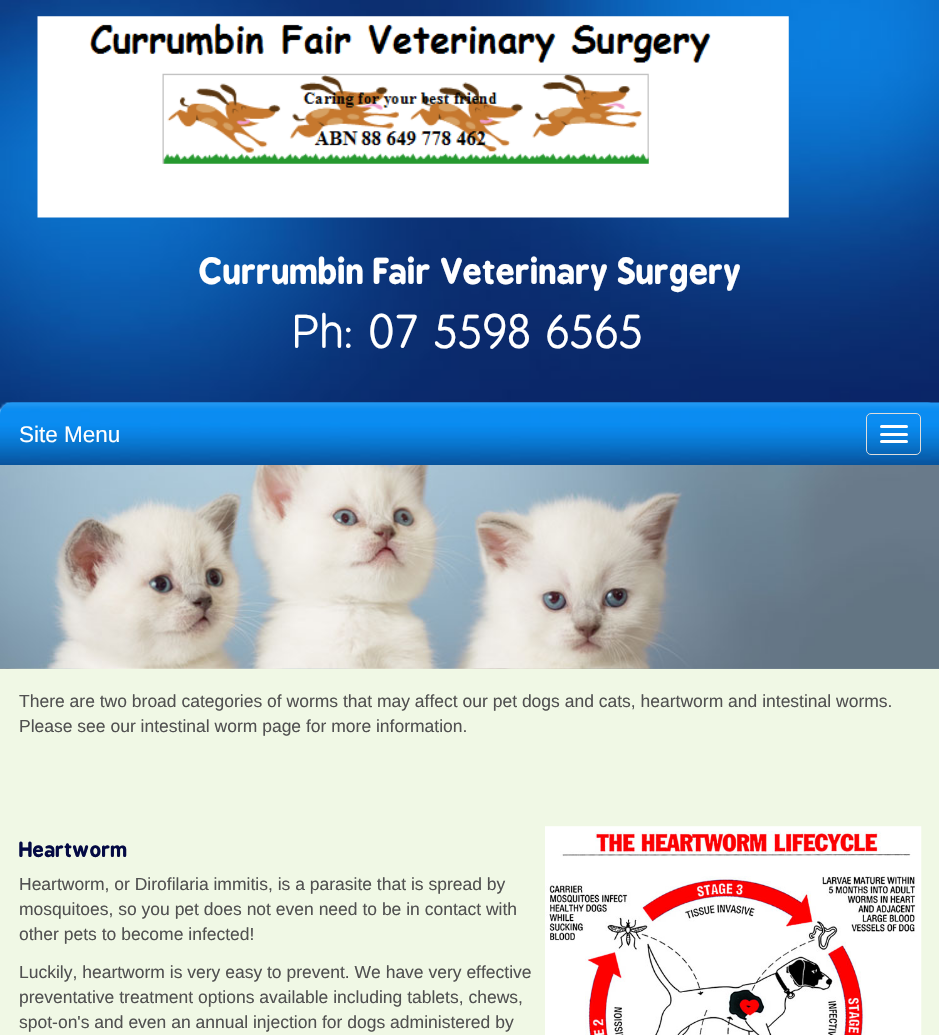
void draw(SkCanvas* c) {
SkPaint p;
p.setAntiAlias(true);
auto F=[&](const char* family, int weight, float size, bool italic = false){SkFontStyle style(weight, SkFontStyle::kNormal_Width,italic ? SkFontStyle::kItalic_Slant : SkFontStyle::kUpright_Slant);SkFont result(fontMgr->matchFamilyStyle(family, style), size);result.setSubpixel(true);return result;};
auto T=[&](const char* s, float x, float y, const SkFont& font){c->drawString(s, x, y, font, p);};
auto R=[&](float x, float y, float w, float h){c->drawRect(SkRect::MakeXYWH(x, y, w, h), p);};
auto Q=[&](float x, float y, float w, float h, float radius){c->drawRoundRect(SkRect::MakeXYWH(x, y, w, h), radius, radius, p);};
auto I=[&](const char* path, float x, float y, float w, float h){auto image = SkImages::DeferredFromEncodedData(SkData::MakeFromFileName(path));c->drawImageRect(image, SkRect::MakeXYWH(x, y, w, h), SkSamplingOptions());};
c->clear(0xffffffff);
I("1.png",0,0,939,403);
I("2.png",37,16,752,202);
auto f1 = F("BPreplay",700,33.75);
p.setColor(0xffffffff);
T("Currumbin Fair Veterinary Surgery",199,284,f1);
auto f2 = F("BPreplay",400,45);
T("Ph: 07 5598 6565",295,348,f2);
I("3.png",0,402,939,63);
I("4.png",0,402,931,63);
auto f3 = F("Liberation Sans",400,22.5);
T("Site Menu",19,442,f3);
p.setStroke(true);
p.setStrokeWidth(1);
p.setColor(0xffdddddd);
c->drawRoundRect(SkRect::MakeXYWH(866.5,413.5,54,41),4.5,4.5,p);
p.setStroke(false);
p.setColor(0xffffffff);
Q(880,425,28,3,1.5);
Q(880,433,28,3,1.5);
Q(880,440,28,3,1.5);
p.setColor(0xfff0f8e5);
R(0,668,939,367);
I("5.png",0,668,939,1);
I("6.png",0,465,939,204);
auto f4 = F("Liberation Sans",400,17.5);
p.setColor(0xff515151);
T("There are two broad categories of worms that may affect our pet dogs and cats, heartworm and intestinal worms.",19,707,f4);
T("Please see our intestinal worm page for more information.",19,732,f4);
auto f5 = F("BPreplay",700,20);
p.setColor(0xff040a44);
T("Heartworm",19,857,f5);
I("7.png",545,826,377,209);
p.setColor(0xff515151);
T("Heartworm, or Dirofilaria immitis, is a parasite that is spread by",19,890,f4);
T("mosquitoes, so you pet does not even need to be in contact with",19,915,f4);
T("other pets to become infected!",19,940,f4);
T("Luckily, heartworm is very easy to prevent. We have very effective",19,978,f4);
T("preventative treatment options available including tablets, chews,",19,1003,f4);
T("spot-on's and even an annual injection for dogs administered by",19,1028,f4);
}
